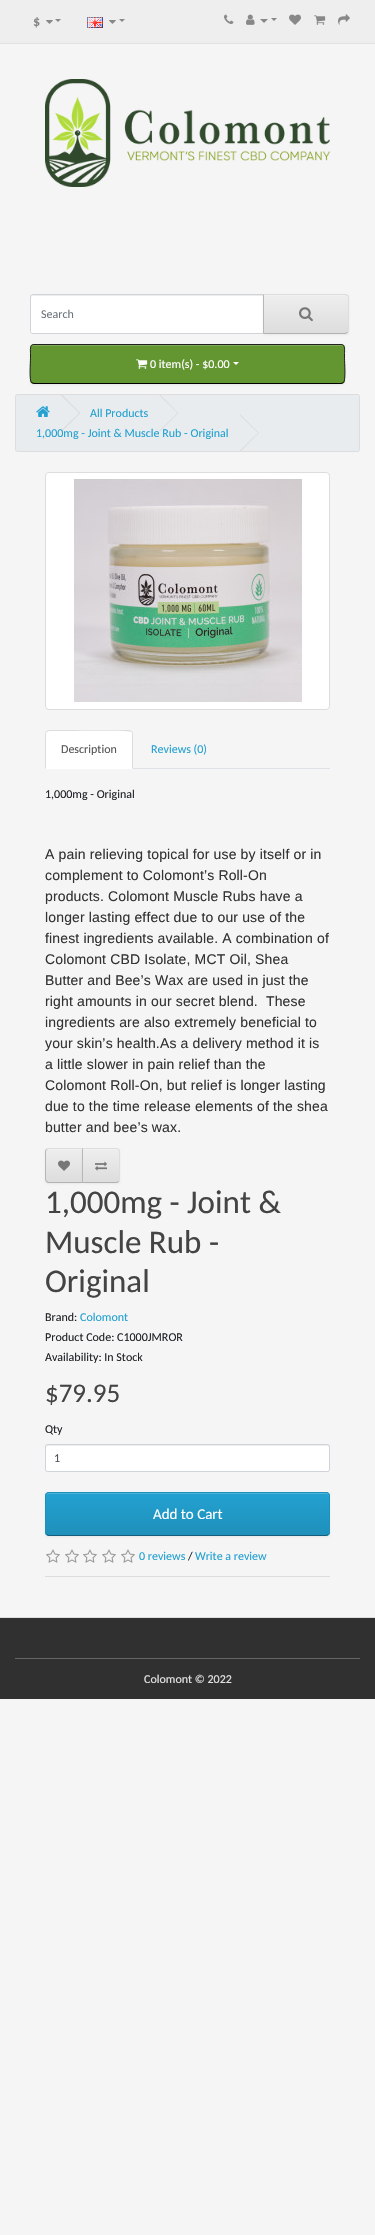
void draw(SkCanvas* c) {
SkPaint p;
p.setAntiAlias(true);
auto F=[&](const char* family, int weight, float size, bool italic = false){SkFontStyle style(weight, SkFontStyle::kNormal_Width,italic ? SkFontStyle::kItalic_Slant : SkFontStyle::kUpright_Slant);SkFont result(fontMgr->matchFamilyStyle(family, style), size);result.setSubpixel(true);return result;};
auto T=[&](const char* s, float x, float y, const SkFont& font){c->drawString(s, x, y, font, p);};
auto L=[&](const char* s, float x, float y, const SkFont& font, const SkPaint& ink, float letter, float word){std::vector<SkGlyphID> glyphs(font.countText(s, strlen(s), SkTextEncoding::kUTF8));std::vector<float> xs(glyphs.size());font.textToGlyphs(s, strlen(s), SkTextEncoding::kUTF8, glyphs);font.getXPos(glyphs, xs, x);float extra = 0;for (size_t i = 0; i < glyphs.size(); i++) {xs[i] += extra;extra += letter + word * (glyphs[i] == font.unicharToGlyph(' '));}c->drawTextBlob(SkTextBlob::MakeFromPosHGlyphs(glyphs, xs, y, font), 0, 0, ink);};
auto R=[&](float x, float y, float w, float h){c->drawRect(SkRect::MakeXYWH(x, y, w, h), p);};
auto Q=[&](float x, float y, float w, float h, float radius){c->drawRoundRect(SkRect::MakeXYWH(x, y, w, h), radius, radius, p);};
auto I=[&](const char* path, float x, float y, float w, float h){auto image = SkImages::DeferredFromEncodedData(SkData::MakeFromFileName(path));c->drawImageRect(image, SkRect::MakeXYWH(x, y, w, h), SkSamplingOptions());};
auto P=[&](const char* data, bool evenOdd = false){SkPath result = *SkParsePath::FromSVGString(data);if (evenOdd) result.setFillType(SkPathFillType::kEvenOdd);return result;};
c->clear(0xfff5f5f5);
p.setColor(0xffeeeeee);
R(0,0,375,43);
p.setColor(0xffe2e2e2);
R(0,43,375,1);
auto f1 = F("Carlito",700,14);
p.setColor(0xff888888);
T("$",33,26,f1);
I("1.png",46,20,7,4);
c->drawPath(P("M55 19h6l-3 3z"),p);
I("2.png",87,17,16,11);
I("1.png",109,20,7,4);
c->drawPath(P("M119 19h6l-3 3z"),p);
I("3.png",224,14,10,10);
I("4.png",246,14,9,11);
c->drawPath(P("M260 19h8l-4 4zm11-1h6l-3 3z"),p);
I("5.png",289,14,12,11);
I("6.png",314,15,12,10);
I("7.png",338,14,12,11);
I("8.png",45,79,285,108);
p.setColor(0xffffffff);
c->drawPath(P("M32.5 295h230.5v38h-230.5c-1 0-1.5-.5-1.5-1.5v-35c0-1 .5-1.5 1.5-1.5z"),p);
p.setColor(0x12000000);
c->drawPath(P("M32 296h231v-1h-231c-1 0-1 2-1 3z"),p);
p.setStroke(true);
p.setStrokeWidth(1);
p.setColor(0xffced4da);
c->drawPath(P("M32.5 294.5h231v39h-231c-1 0-2-1-2-2v-35c0-1 1-2 2-2z"),p);
auto f2 = F("Carlito",400,12);
p.setStroke(false);
p.setColor(0xff6c757d);
T("Search",41,318,f2);
p.setColor(0x0d000000);
p.setMaskFilter(SkMaskFilter::MakeBlur(kNormal_SkBlurStyle, 1));
c->drawRoundRect(SkRect::MakeXYWH(263,295,86,40),4,4,p);
p.setMaskFilter(nullptr);
p.setColor(0xffe7e7e7);
c->drawPath(P("M263 294h82c2 0 4 2 4 4v32c0 2-2 4-4 4h-82z"),p);
c->save();
c->clipPath(P("M263 294h82c2 0 4 2 4 4v32c0 2-2 4-4 4h-82z"),true);
{
const SkColor colors[] = {0xffeeeeee,0xffdddddd};
const float stops[] = {0,1};
const SkPoint ends[] = {{306,295}, {306,333}};
p.setShader(SkGradientShader::MakeLinear(ends, colors, stops, 2, SkTileMode::kClamp));
p.setAlpha(255);
}
R(264,295,85,38);
c->restore();
p.setShader(nullptr);
p.setColor(0xfff1f1f1);
c->drawPath(P("M264 296h81c2 0 3 1 3 3v-1c0-2-1-3-3-3h-81z"),p);
p.setColor(0xffdddddd);
c->drawPath(P("M263 294l1 1h81l2 1l1-1l-3-1z"),p);
c->drawPath(P("M349 330v-32c0-1-.5-2-1-3l-1 1c1 0 1 1 1 2v32c0 1 0 2-1 2l1 1c.5-1 1-2 1-3z"),p);
p.setColor(0xffb3b3b3);
c->drawPath(P("M345 334l3-1l-1-1l-2 1h-81l-1 1z"),p);
p.setColor(0xffb7b7b7);
c->drawPath(P("M263 294v40l1-1v-38z"),p);
I("9.png",299,307,14,15);
p.setColor(0x0d000000);
p.setMaskFilter(SkMaskFilter::MakeBlur(kNormal_SkBlurStyle, 1));
c->drawRoundRect(SkRect::MakeXYWH(30,345,315,40),4,4,p);
p.setMaskFilter(nullptr);
p.setColor(0xff639531);
Q(30,344,315,40,4);
p.setColor(0xff82aa5a);
c->drawPath(P("M34 346h307c2 0 3 1 3 3l-1-3l-1-1h-308c-2 0-3 2-3 4c0-2 1-3 3-3z"),p);
p.setStroke(true);
p.setColor(0xff000000);
c->drawPath(P("M343.5 382.5l-2.5 1h-307l-2.5-1"),p);
p.setColor(0xff222222);
c->drawPath(P("M31.5 382.5c-2.5-2.5-1-20-1-24v-5c0-3-1-9 3.5-9h307c4.5 0 3.5 6 3.5 9v5c0 4 1.5 21.5-1 24"),p);
I("10.png",136,359,12,10);
p.setStroke(false);
p.setColor(0xffffffff);
T("0 item(s) - $0.00",150,368,f2);
c->drawPath(P("M233 362h6l-3 3z"),p);
p.setColor(0xffe9ecef);
c->drawRoundRect(SkRect::MakeXYWH(15.5,394.5,344,57),2,2,p);
p.setStroke(true);
p.setColor(0xffdddddd);
c->drawRoundRect(SkRect::MakeXYWH(15.5,394.5,344,57),2,2,p);
I("11.png",36,406,14,11);
p.setStroke(false);
c->drawPath(P("M61 395.5l1-1l18.5 18.5l-1 .5z"),p);
c->drawPath(P("M61 430.5l18.5-18l1 .5l-18.5 18.5z"),p);
p.setColor(0xff23a1d1);
T("All Products",90,417,f2);
p.setColor(0xffdddddd);
c->drawPath(P("M159.5 395.5l.5-1l18.5 18.5l-.5 .5z"),p);
c->drawPath(P("M159.5 430.5l18.5-18l.5 .5l-18.5 18.5z"),p);
p.setColor(0xff23a1d1);
T("1,000mg - Joint & Muscle Rub - Original",36,437,f2);
p.setColor(0xffdddddd);
c->drawPath(P("M240 415.5l.5-1l18.5 18.5l-.5 .5z"),p);
c->drawPath(P("M240 450.5l18.5-18l.5 .5l-18.5 18.5z"),p);
p.setColor(0xffffffff);
c->drawRoundRect(SkRect::MakeXYWH(45.5,472.5,284,237),3.5,3.5,p);
p.setStroke(true);
p.setColor(0xffdddddd);
c->drawRoundRect(SkRect::MakeXYWH(45.5,472.5,284,237),3.5,3.5,p);
I("12.png",74,479,228,223);
p.setStroke(false);
p.setColor(0xffdee2e6);
R(133,768,197,1);
p.setColor(0xffffffff);
c->drawPath(P("M49 730h80c2 0 4 2 4 4v35h-88v-35c0-2 2-4 4-4z"),p);
p.setColor(0xffdddddd);
c->drawPath(P("M49 730l-3 1l1 1l2-1h13c8 0 67-1 69 1l1-1l-3-1z"),p);
c->drawPath(P("M133 769v-35c0-1-.5-2-1-3l-1 1c1 0 1 1 1 2v34z"),p);
c->drawPath(P("M45 769l1-1v-34c0-1 0-2 1-2l-1-1c-.5 1-1 2-1 3z"),p);
p.setColor(0xff555555);
T("Description",61,753,f2);
p.setColor(0xff23a1d1);
T("Reviews (0)",151,753,f2);
p.setColor(0xff212529);
T("1,000mg - Original",45,798,f2);
auto f3 = F("Liberation Sans",400,14);
p.setColor(0xff333333);
L("A pain relieving topical for use by itself or in",45,859,f3,p,.15,0);
L("complement to Colomont’s Roll-On",45,880,f3,p,.15,0);
L("products. Colomont Muscle Rubs have a",45,901,f3,p,.15,0);
L("longer lasting effect due to our use of the",45,922,f3,p,.15,0);
L("finest ingredients available. A combination of",45,943,f3,p,.15,0);
L("Colomont CBD Isolate, MCT Oil, Shea",45,964,f3,p,.15,0);
L("Butter and Bee’s Wax are used in just the",45,985,f3,p,.15,0);
L("right amounts in our secret blend.  These",45,1006,f3,p,.15,0);
L("ingredients are also extremely beneficial to",45,1027,f3,p,.15,0);
L("your skin’s health.As a delivery method it is",45,1048,f3,p,.15,0);
L("a little slower in pain relief than the",45,1069,f3,p,.15,0);
L("Colomont Roll-On, but relief is longer lasting",45,1090,f3,p,.15,0);
L("due to the time release elements of the shea",45,1111,f3,p,.15,0);
L("butter and bee’s wax.",45,1132,f3,p,.15,0);
p.setColor(0x0d000000);
p.setMaskFilter(SkMaskFilter::MakeBlur(kNormal_SkBlurStyle, 1));
c->drawRoundRect(SkRect::MakeXYWH(45,1149,38,35),4,4,p);
p.setMaskFilter(nullptr);
c->save();
c->clipPath(P("M49 1148h34v35h-34c-2 0-4-2-4-4v-27c0-2 2-4 4-4z"),true);
{
const SkColor colors[] = {0xffeeeeee,0xffdddddd};
const float stops[] = {0,1};
const SkPoint ends[] = {{64,1149}, {64,1182}};
p.setShader(SkGradientShader::MakeLinear(ends, colors, stops, 2, SkTileMode::kClamp));
p.setAlpha(255);
}
R(45,1149,37,33);
c->restore();
p.setShader(nullptr);
p.setColor(0xfff1f1f1);
c->drawPath(P("M49 1150h33v-1h-33c-1.5 0-3 1.5-3 3v1c0-2 1-3 3-3z"),p);
p.setColor(0xffdddddd);
c->drawPath(P("M49 1148c-1 0-2 .5-3 1l1 1c.5-.5 1-1 2-1h33l1-1z"),p);
p.setColor(0xffb3b3b3);
c->drawPath(P("M83 1183l-1-1h-33c-1 0-1.5-.5-2-1l-1 1c1 .5 2 1 3 1z"),p);
p.setColor(0xffb7b7b7);
c->drawPath(P("M45 1152v27c0 1 .5 2 1 3l1-1c-.5-.5-1-1-1-2v-27c0-1 .5-1.5 1-2l-1-1c-.5 1-1 2-1 3z"),p);
I("13.png",58,1160,12,11);
p.setColor(0x0d000000);
p.setMaskFilter(SkMaskFilter::MakeBlur(kNormal_SkBlurStyle, 1));
c->drawRoundRect(SkRect::MakeXYWH(82,1149,38,35),4,4,p);
p.setMaskFilter(nullptr);
c->save();
c->clipPath(P("M82 1148h34c2 0 4 2 4 4v27c0 2-2 4-4 4h-34z"),true);
{
const SkColor colors[] = {0xffeeeeee,0xffdddddd};
const float stops[] = {0,1};
const SkPoint ends[] = {{101,1149}, {101,1182}};
p.setShader(SkGradientShader::MakeLinear(ends, colors, stops, 2, SkTileMode::kClamp));
p.setAlpha(255);
}
R(83,1149,37,33);
c->restore();
p.setShader(nullptr);
p.setColor(0xfff1f1f1);
c->drawPath(P("M83 1150h33c2 0 3 1 3 3v-1c0-1.5-1.5-3-3-3h-33z"),p);
p.setColor(0xffdddddd);
c->drawPath(P("M82 1148l1 1h33c1 0 1.5 .5 2 1l1-1c-1-.5-2-1-3-1z"),p);
c->drawPath(P("M120 1179v-27c0-1-.5-2-1-3l-1 1c.5 .5 1 1 1 2v27c0 1-.5 1.5-1 2l1 1c.5-1 1-2 1-3z"),p);
p.setColor(0xffb3b3b3);
c->drawPath(P("M116 1183c1 0 2-.5 3-1l-1-1c-.5 .5-1 1-2 1h-33l-1 1z"),p);
p.setColor(0xffb7b7b7);
c->drawPath(P("M82 1148v35l1-1v-33z"),p);
I("14.png",95,1161,12,10);
auto f4 = F("Carlito",400,33);
p.setColor(0xff444444);
T("1,000mg - Joint &",45,1213,f4);
T("Muscle Rub -",45,1253,f4);
T("Original",45,1292,f4);
p.setColor(0xff212529);
T("Brand:",45,1321,f2);
p.setColor(0xff23a1d1);
T("Colomont",80,1321,f2);
p.setColor(0xff212529);
T("Product Code: C1000JMROR",45,1341,f2);
T("Availability: In Stock",45,1361,f2);
auto f5 = F("Carlito",400,27);
p.setColor(0xff444444);
T("$79.95",45,1402,f5);
p.setColor(0xff212529);
T("Qty",45,1433,f2);
p.setColor(0xffffffff);
Q(46,1445,283,26,1.5);
p.setColor(0x12000000);
c->drawPath(P("M48 1446h280l1 2c0-1 0-3-1-3h-280h-2v3c0-1 1-2 2-2z"),p);
p.setStroke(true);
p.setColor(0xffced4da);
c->drawRoundRect(SkRect::MakeXYWH(45.5,1444.5,284,27),2,2,p);
p.setStroke(false);
p.setColor(0xff495057);
T("1",54,1462,f2);
p.setColor(0x0d000000);
p.setMaskFilter(SkMaskFilter::MakeBlur(kNormal_SkBlurStyle, 1));
c->drawRoundRect(SkRect::MakeXYWH(45,1493,285,44),4,4,p);
p.setMaskFilter(nullptr);
p.setColor(0xff229ac8);
Q(45,1492,285,44,4);
c->save();
c->clipPath(P("M49 1492h277c2 0 4 2 4 4v36c0 2-2 4-4 4h-277c-2 0-4-2-4-4v-36c0-2 2-4 4-4z"),true);
{
const SkColor colors[] = {0xff23a1d1,0xff1f90bb};
const float stops[] = {0,1};
const SkPoint ends[] = {{188,1493}, {188,1535}};
p.setShader(SkGradientShader::MakeLinear(ends, colors, stops, 2, SkTileMode::kClamp));
p.setAlpha(255);
}
R(45,1493,285,42);
c->restore();
p.setShader(nullptr);
p.setColor(0xff4fb4da);
c->drawPath(P("M49 1494h277c2 0 3 1 3 3v-1c0-2-1-3-3-3h-277c-2 0-3 1-3 3v1c0-2 1-3 3-3z"),p);
p.setStroke(true);
p.setColor(0xff145e7a);
c->drawPath(P("M328.5 1534.5l-2.5 1h-277l-2.5-1"),p);
p.setColor(0xff1f90bb);
c->drawPath(P("M46.5 1534.5c-.5-.5-1-1.5-1-2.5v-36c0-1 .5-2 1-2.5c.5-.5 1.5-1 2.5-1h277c1 0 2 .5 2.5 1c.5 .5 1 1.5 1 2.5v36c0 1-.5 2-1 2.5"),p);
auto f6 = F("Carlito",400,15);
p.setStroke(false);
p.setColor(0xffffffff);
T("Add to Cart",153,1519,f6);
I("15.png",46,1549,14,14);
I("15.png",65,1549,14,14);
I("15.png",83,1549,14,14);
I("15.png",102,1549,14,14);
I("15.png",121,1549,14,14);
p.setColor(0xff23a1d1);
T("0 reviews",139,1560,f2);
p.setColor(0xff212529);
T("/",188,1560,f2);
p.setColor(0xff23a1d1);
T("Write a review",195,1560,f2);
p.setColor(0xffdddddd);
R(45,1576,285,1);
p.setColor(0xff303030);
R(0,1618,375,81);
p.setColor(0xffdddddd);
R(0,1617,375,1);
p.setColor(0xff666666);
R(15,1658,345,1);
p.setColor(0xffe2e2e2);
T("Colomont © 2022",144,1683,f2);
}
